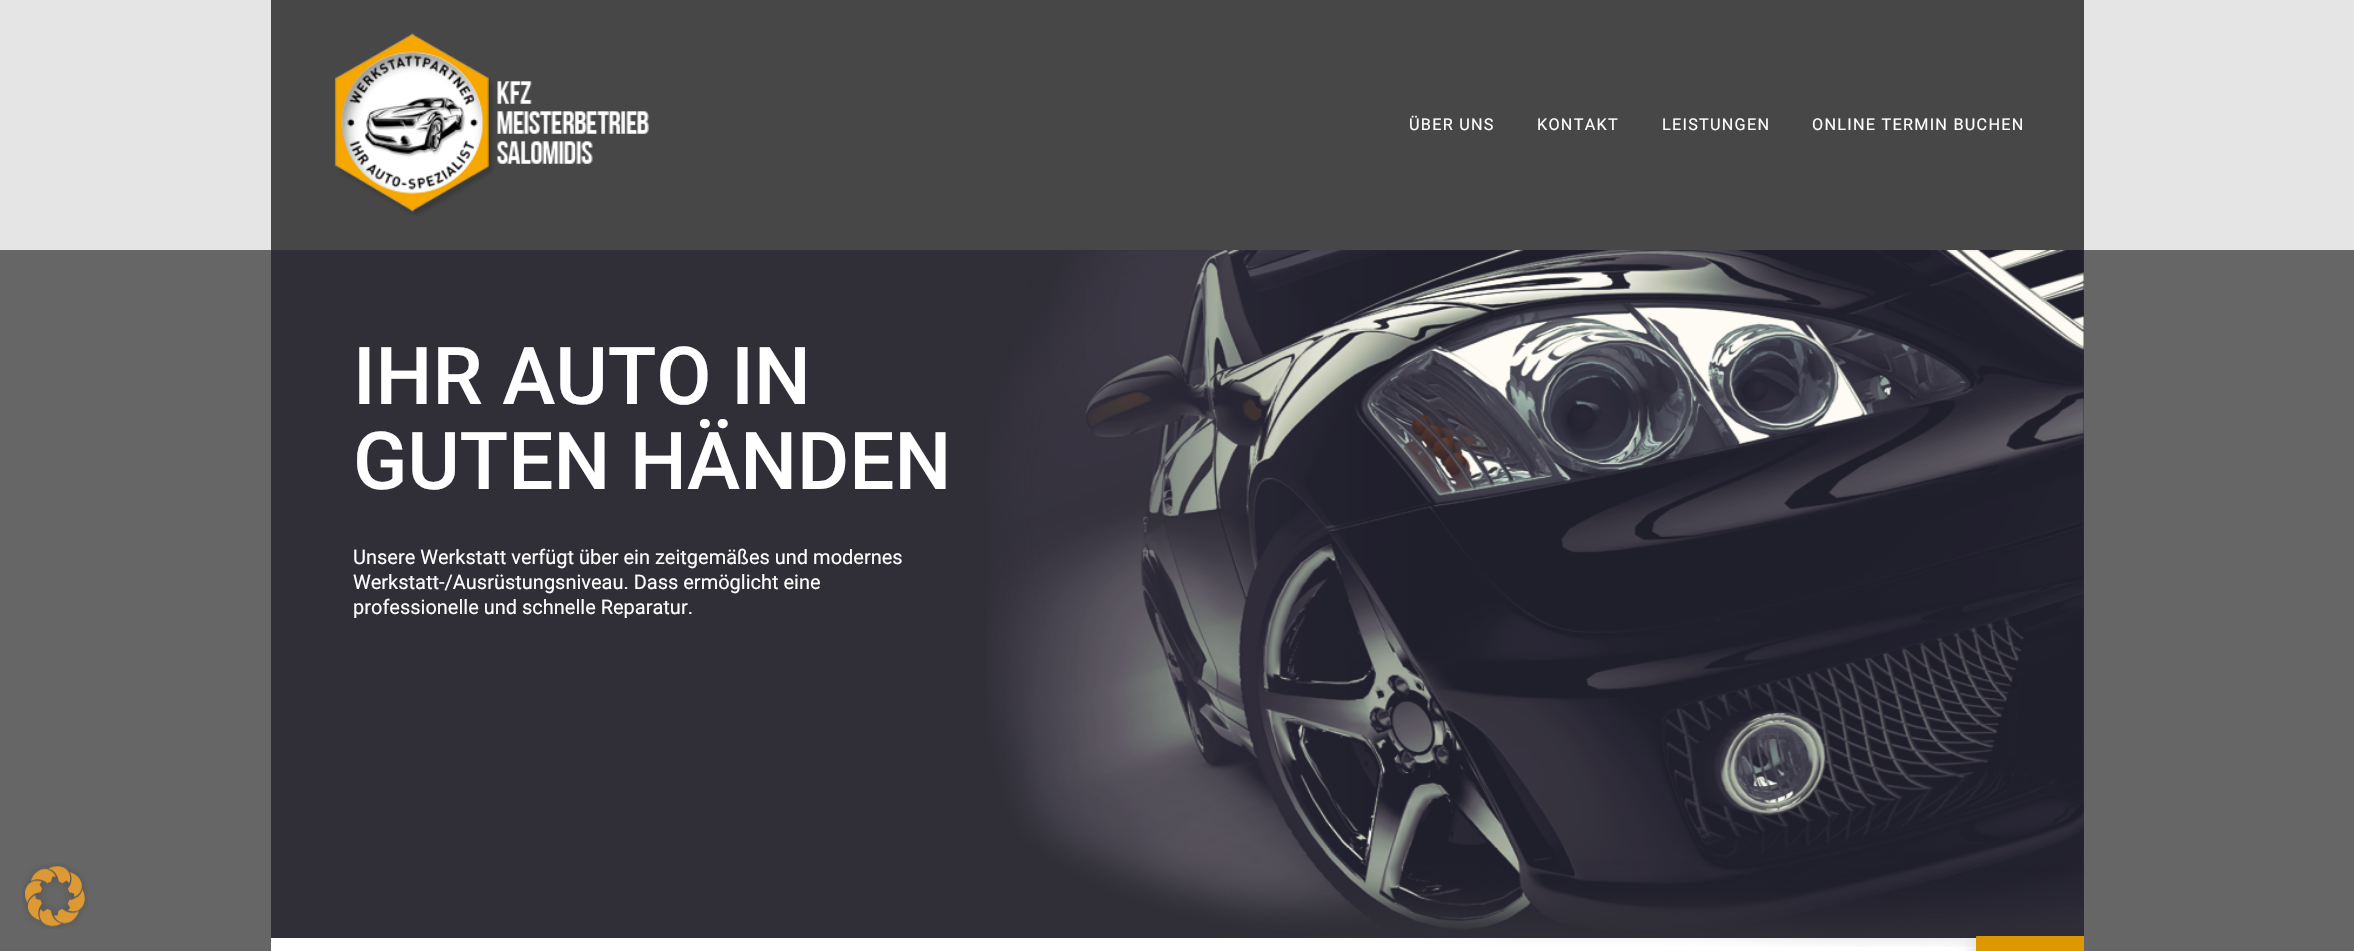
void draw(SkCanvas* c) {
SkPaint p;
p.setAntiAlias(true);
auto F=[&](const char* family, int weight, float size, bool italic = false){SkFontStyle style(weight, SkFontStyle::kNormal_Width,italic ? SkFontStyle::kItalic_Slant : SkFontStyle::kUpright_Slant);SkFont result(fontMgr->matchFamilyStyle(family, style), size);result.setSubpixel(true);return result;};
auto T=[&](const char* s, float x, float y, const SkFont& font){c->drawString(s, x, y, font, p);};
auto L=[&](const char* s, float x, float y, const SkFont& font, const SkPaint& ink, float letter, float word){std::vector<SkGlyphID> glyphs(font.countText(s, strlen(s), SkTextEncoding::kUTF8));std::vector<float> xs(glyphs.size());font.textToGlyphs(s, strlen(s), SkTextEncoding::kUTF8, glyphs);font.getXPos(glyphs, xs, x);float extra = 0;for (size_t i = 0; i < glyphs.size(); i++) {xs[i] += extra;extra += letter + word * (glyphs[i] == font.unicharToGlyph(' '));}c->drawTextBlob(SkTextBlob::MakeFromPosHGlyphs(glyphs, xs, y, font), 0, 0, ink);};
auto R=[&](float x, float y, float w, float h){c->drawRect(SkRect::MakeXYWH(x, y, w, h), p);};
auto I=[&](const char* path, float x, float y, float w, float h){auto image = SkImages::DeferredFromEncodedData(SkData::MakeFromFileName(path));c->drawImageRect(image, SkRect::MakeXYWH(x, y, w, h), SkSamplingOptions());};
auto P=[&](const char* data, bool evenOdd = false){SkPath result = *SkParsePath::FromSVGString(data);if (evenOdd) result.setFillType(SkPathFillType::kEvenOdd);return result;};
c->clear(0xff666666);
p.setColor(0xffe5e5e5);
R(0,0,2354,250);
p.setColor(0xff474747);
R(271,0,1813,250);
I("1.png",334,33,315,183);
auto f1 = F("Roboto",400,16.25);
p.setColor(0xffffffff);
L("ÜBER UNS",1409,130,f1,p,1.25,0);
L("KONTAKT",1537,130,f1,p,1.25,0);
L("LEISTUNGEN",1662,130,f1,p,1.25,0);
L("ONLINE TERMIN BUCHEN",1812,130,f1,p,1.25,0);
R(271,938,1705,13);
p.setColor(0xff302f38);
R(271,250,1813,688);
auto f2 = F("Roboto",500,80);
p.setColor(0xffffffff);
T("IHR AUTO IN",353,404,f2);
T("GUTEN HÄNDEN",353,489,f2);
I("2.png",987,250,1097,697);
auto f3 = F("Roboto",400,20);
T("Unsere Werkstatt verfügt über ein zeitgemäßes und modernes",353,564,f3);
T("Werkstatt-/Ausrüstungsniveau. Dass ermöglicht eine",353,589,f3);
T("professionelle und schnelle Reparatur.",353,614,f3);
c->save();
c->clipRect(SkRect::MakeXYWH(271,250,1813,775));
p.setColor(0x40000000);
p.setMaskFilter(SkMaskFilter::MakeBlur(kNormal_SkBlurStyle, 9.5));
c->drawRoundRect(SkRect::MakeXYWH(1976,945,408,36),1,1,p);
p.setMaskFilter(nullptr);
c->restore();
p.setColor(0xffdd9700);
c->drawPath(P("M1977 936h107v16h-107c-.5 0-1-.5-1-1v-14c0-.5 .5-1 1-1z"),p);
I("3.png",22,863,66,66);
}
